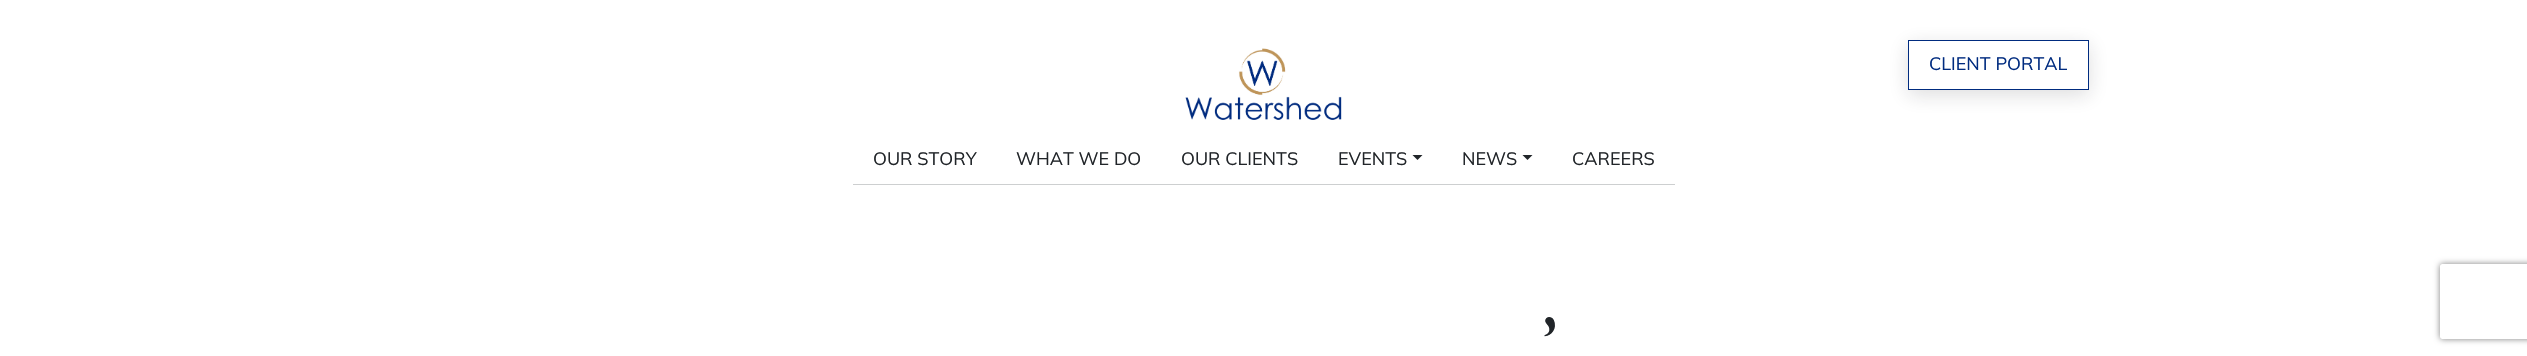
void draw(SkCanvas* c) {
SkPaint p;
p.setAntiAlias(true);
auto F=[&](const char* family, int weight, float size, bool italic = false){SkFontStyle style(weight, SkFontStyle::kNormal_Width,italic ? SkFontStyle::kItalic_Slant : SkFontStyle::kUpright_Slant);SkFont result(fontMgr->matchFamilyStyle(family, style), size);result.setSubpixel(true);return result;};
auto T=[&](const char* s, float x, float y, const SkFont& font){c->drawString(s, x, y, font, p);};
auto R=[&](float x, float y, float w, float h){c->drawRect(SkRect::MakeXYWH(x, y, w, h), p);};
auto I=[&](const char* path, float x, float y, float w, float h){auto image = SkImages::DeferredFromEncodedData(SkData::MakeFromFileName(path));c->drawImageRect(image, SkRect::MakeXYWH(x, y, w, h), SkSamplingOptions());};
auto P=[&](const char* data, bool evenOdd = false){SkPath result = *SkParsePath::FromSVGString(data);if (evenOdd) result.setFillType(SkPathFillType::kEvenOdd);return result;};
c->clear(0xffffffff);
I("1.png",1185,48,157,72);
c->save();
c->clipPath(P("M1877 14h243v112h-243zm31 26h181v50h-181z",true),true);
p.setColor(0x261c1c21);
p.setMaskFilter(SkMaskFilter::MakeBlur(kNormal_SkBlurStyle, 10));
c->drawRect(SkRect::MakeXYWH(1908,45,181,50),p);
p.setMaskFilter(nullptr);
c->restore();
p.setStroke(true);
p.setStrokeWidth(1);
p.setColor(0xff002b7f);
c->drawRect(SkRect::MakeXYWH(1908.5,40.5,180,49),p);
auto f1 = F("Mulish",400,18);
p.setStroke(false);
T("CLIENT PORTAL",1929,70,f1);
p.setColor(0xffcdcfd0);
R(853,184,822,1);
p.setColor(0xff212529);
T("OUR STORY",873,165,f1);
T("WHAT WE DO",1016,165,f1);
T("OUR CLIENTS",1181,165,f1);
T("EVENTS",1338,165,f1);
c->drawPath(P("M1412.5 155h10l-5 5z"),p);
T("NEWS",1462,165,f1);
c->drawPath(P("M1522.5 155h10l-5 5z"),p);
T("CAREERS",1572,165,f1);
auto f2 = F("Cinzel",400,100);
T("’",1540,395,f2);
c->save();
c->clipPath(P("M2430 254h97v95h-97zm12.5 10h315c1.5 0 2.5 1 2.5 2.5v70c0 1.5-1 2.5-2.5 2.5h-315c-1.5 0-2.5-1-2.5-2.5v-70c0-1.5 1-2.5 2.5-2.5z",true),true);
p.setColor(0xff808080);
p.setMaskFilter(SkMaskFilter::MakeBlur(kNormal_SkBlurStyle, 3));
c->drawRoundRect(SkRect::MakeXYWH(2440,264,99,75),2.5,2.5,p);
p.setMaskFilter(nullptr);
c->restore();
}
